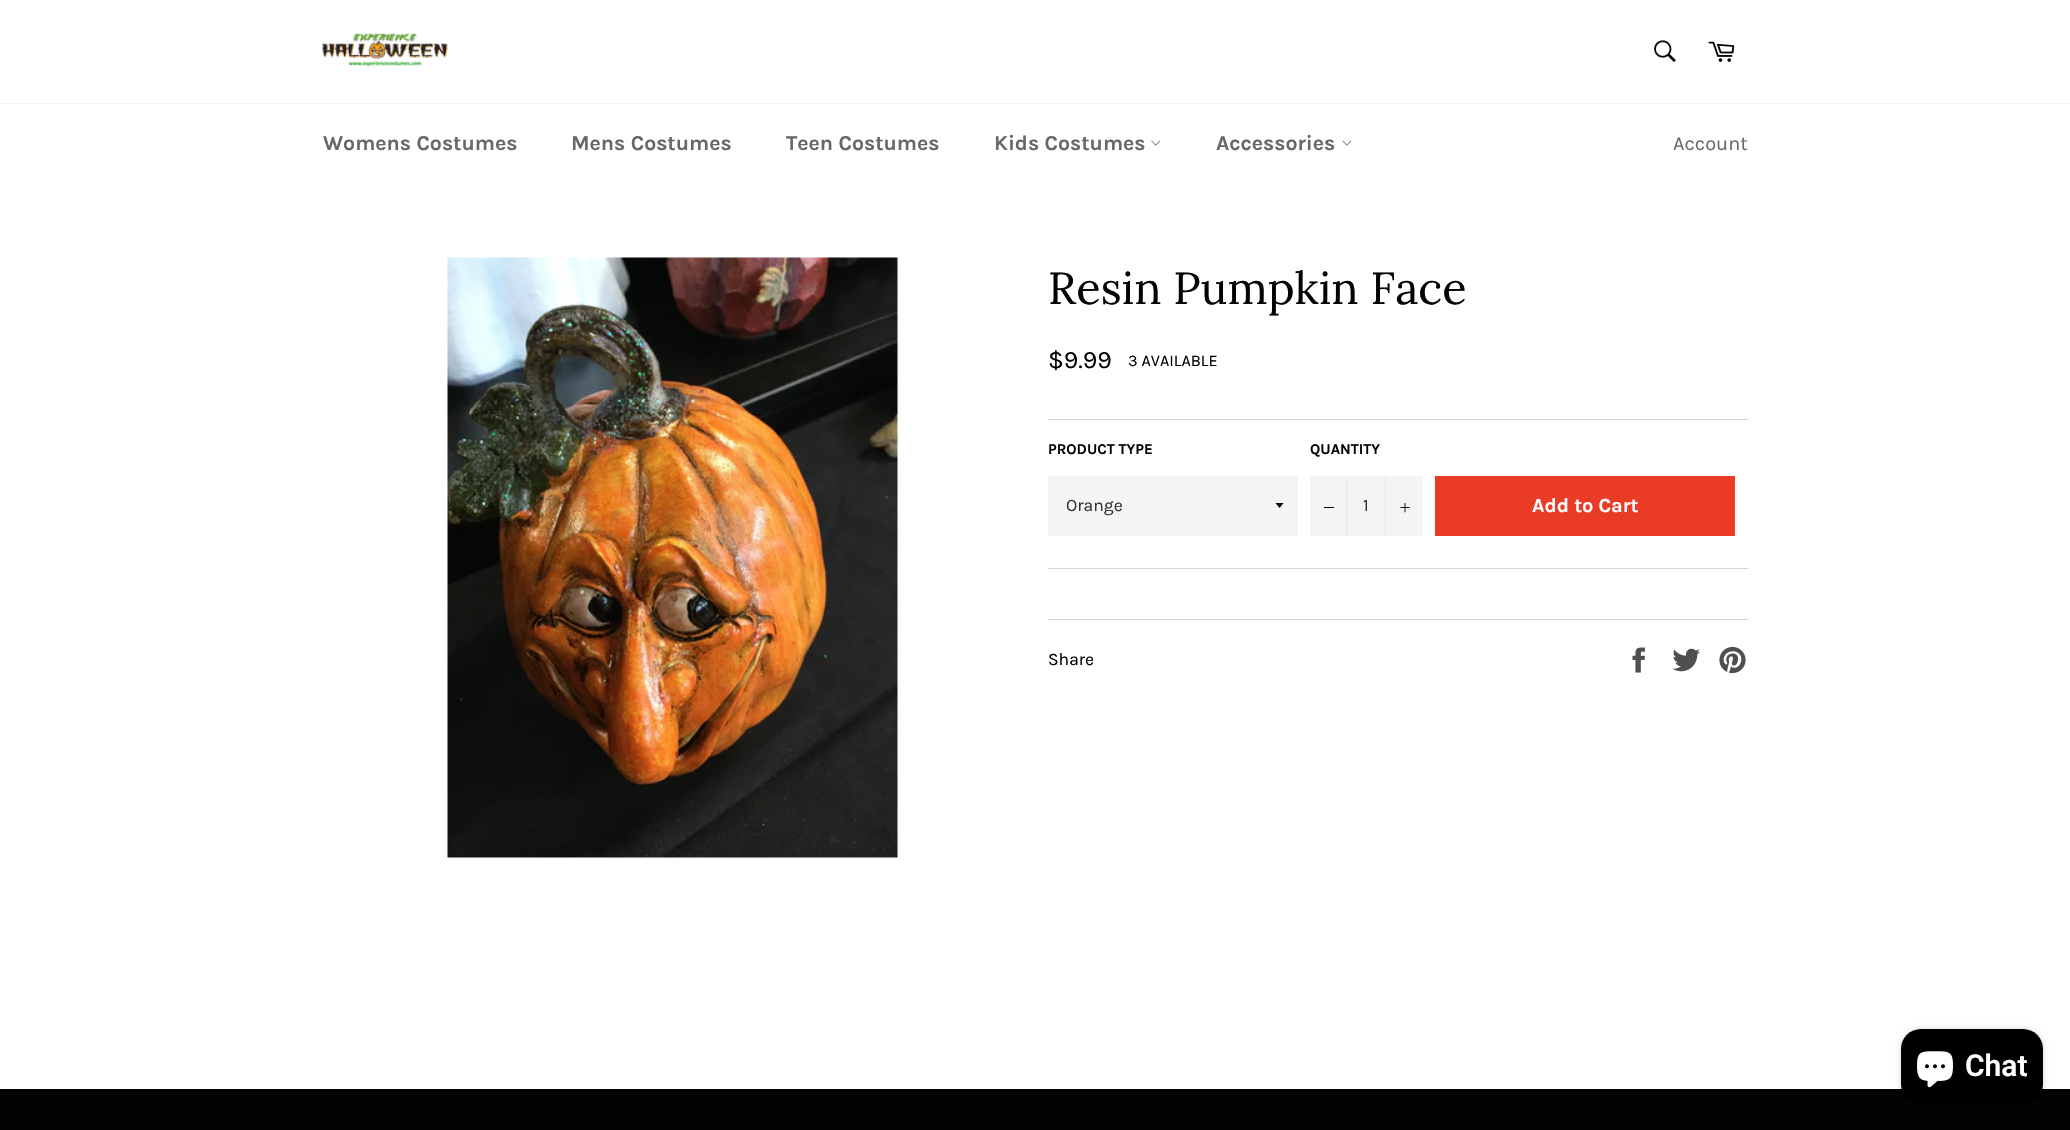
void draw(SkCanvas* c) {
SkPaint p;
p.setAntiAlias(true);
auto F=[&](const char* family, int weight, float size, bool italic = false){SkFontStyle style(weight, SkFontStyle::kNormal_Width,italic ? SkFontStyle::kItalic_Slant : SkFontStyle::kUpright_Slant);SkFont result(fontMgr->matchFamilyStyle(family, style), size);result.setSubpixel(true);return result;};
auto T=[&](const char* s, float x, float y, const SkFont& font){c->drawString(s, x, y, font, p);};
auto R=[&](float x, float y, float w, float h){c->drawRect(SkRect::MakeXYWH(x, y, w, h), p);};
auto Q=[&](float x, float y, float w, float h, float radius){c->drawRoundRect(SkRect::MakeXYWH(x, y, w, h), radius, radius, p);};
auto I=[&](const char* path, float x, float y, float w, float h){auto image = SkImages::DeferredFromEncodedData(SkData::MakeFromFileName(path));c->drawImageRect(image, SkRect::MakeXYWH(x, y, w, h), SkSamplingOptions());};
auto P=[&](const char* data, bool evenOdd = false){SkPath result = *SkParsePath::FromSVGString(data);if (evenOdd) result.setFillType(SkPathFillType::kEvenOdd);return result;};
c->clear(0xffffffff);
I("1.png",322,33,126,34);
I("2.png",1654,40,22,22);
I("3.png",1708,41,27,21);
p.setColor(0xfff2f2f2);
R(0,103,2070,1);
auto f1 = F("Karla",700,21.25);
p.setColor(0xff686868);
T("Womens Costumes",323,150,f1);
T("Mens Costumes",571,150,f1);
T("Teen Costumes",786,150,f1);
T("Kids Costumes",994,150,f1);
I("4.png",1151,140,9,6);
T("Accessories",1216,150,f1);
I("5.png",1342,140,10,6);
auto f2 = F("Karla",400,20);
T("Account",1673,150,f2);
I("6.png",447,257,451,601);
auto f3 = F("Lora",400,45);
p.setColor(0xff030303);
T("Resin Pumpkin Face",1048,304,f3);
auto f4 = F("Karla",400,25);
T("$9.99",1048,368,f4);
auto f5 = F("Karla",400,16.25);
T("3 AVAILABLE",1128,366,f5);
p.setColor(0xffd6d5d5);
R(1048,419,700,1);
auto f6 = F("Karla",700,15);
p.setColor(0xff030303);
T("PRODUCT TYPE",1048,454,f6);
p.setColor(0xfff4f4f4);
R(1048,476,250,60);
c->save();
c->clipRect(SkRect::MakeXYWH(1275,503,10,6));
p.setColor(0xff030303);
c->drawPath(P("M1275 502.5l4.5 5.5l4.5-5.5z"),p);
c->restore();
auto f7 = F("Karla",400,17.5);
p.setColor(0xff333333);
T("Orange",1066,511,f7);
p.setColor(0xff030303);
T("QUANTITY",1310,454,f6);
p.setColor(0xfff4f4f4);
R(1310,476,113,60);
p.setColor(0xffe7e7e7);
R(1346,476,1,60);
p.setColor(0xff030303);
R(1324,507,10,1);
p.setColor(0xff333333);
T("1",1363,511,f7);
p.setColor(0xffe7e7e7);
R(1385,476,1,60);
I("7.png",1400,503,10,10);
p.setColor(0xffea3b27);
R(1435,476,300,60);
auto f8 = F("Karla",700,20);
p.setColor(0xffffffff);
T("Add to Cart",1532,512,f8);
p.setColor(0xffd6d5d5);
R(1048,568,700,1);
R(1048,619,700,1);
p.setColor(0xff030303);
T("Share",1048,665,f7);
I("8.png",1632,647,13,26);
I("9.png",1672,648,28,24);
I("10.png",1719,646,27,28);
R(0,1089,2070,41);
p.setColor(0x26000000);
p.setMaskFilter(SkMaskFilter::MakeBlur(kNormal_SkBlurStyle, 3));
c->drawRoundRect(SkRect::MakeXYWH(1901,1029,142,75),20,20,p);
p.setMaskFilter(nullptr);
p.setColor(0xff000000);
Q(1901,1029,142,75,20);
I("11.png",1917,1051,36,37);
auto f9 = F("Roboto",600,30);
p.setColor(0xffffffff);
T("Chat",1965,1076,f9);
}
